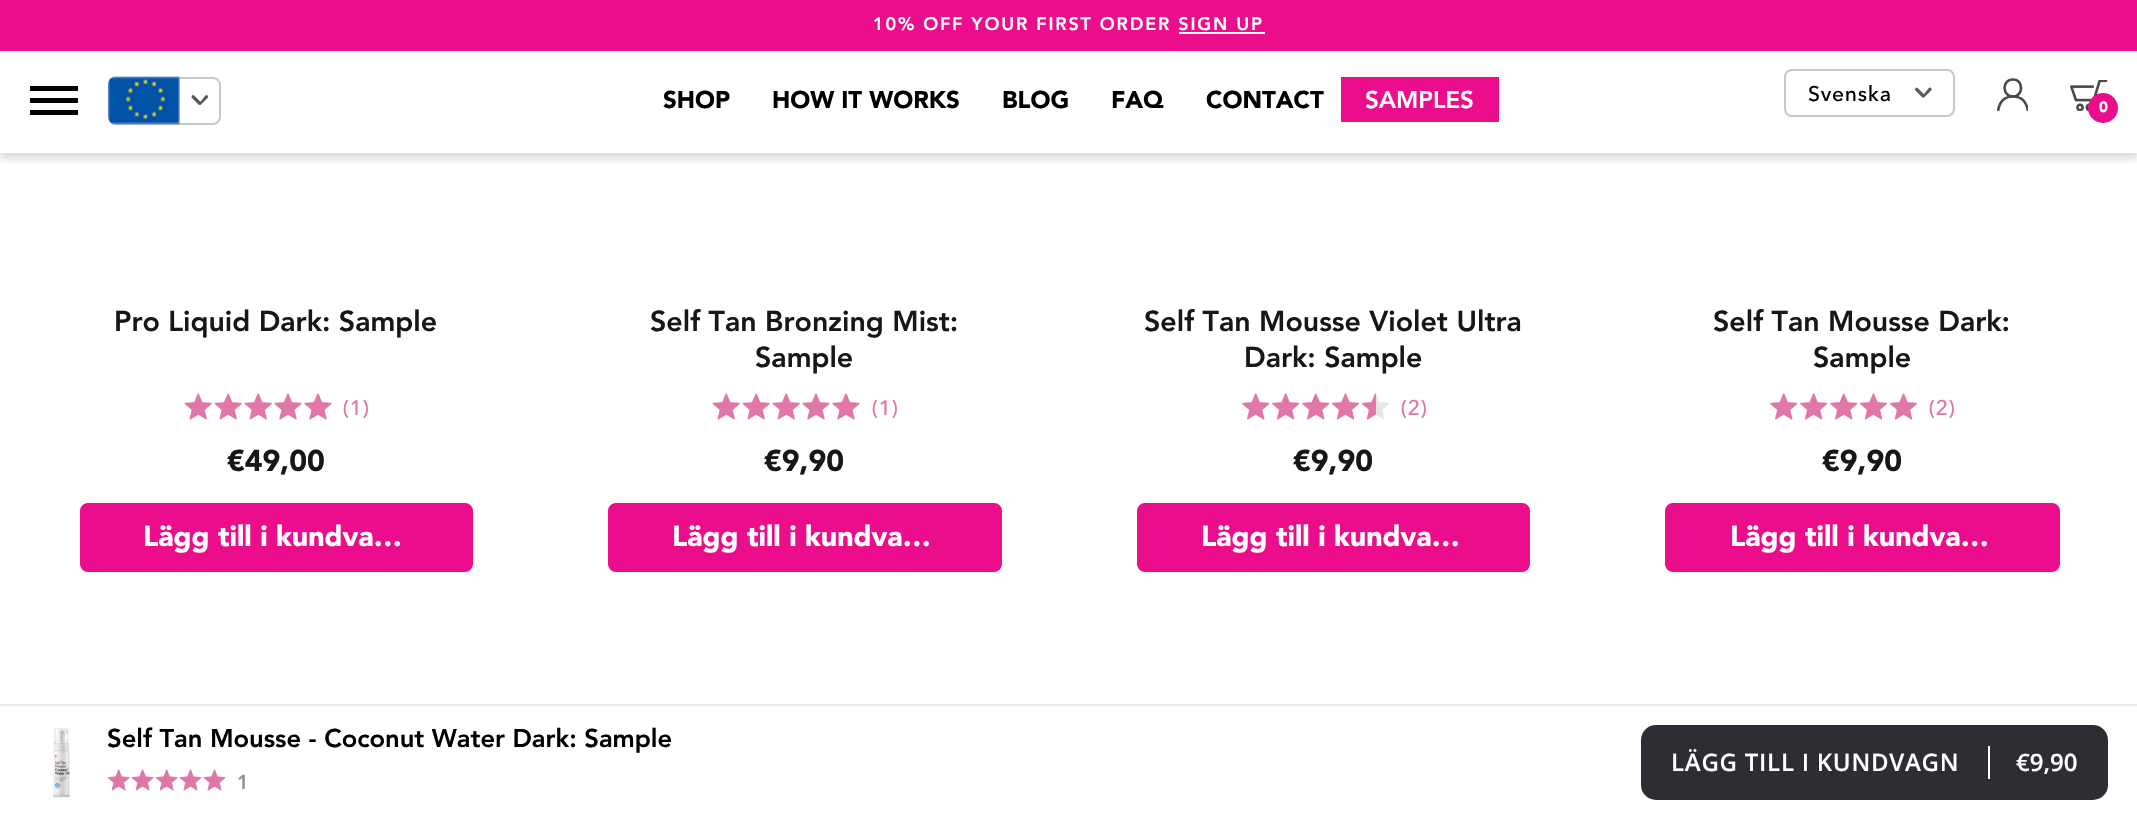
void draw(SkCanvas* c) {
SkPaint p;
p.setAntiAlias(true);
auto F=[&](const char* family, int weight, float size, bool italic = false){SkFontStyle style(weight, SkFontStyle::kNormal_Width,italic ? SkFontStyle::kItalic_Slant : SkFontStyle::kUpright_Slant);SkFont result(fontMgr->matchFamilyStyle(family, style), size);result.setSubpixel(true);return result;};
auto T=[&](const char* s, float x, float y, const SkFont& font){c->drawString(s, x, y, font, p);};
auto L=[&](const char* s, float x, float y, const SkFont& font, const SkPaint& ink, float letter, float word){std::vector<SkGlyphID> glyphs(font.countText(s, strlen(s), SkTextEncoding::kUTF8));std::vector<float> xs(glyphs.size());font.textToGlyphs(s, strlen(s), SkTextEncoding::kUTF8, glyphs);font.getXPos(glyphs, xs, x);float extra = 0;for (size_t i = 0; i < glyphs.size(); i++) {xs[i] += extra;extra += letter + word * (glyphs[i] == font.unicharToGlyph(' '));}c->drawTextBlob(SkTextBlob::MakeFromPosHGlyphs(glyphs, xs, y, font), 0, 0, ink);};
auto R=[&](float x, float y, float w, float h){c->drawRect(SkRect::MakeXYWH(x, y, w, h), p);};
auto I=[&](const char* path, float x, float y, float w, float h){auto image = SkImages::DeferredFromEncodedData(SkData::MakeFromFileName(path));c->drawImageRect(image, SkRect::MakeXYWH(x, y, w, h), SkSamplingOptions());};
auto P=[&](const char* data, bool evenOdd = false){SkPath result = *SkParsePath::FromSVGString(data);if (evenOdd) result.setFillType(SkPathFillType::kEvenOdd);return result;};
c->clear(0xffffffff);
c->save();
c->clipRect(SkRect::MakeXYWH(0,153,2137,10));
p.setColor(0x29000000);
p.setMaskFilter(SkMaskFilter::MakeBlur(kNormal_SkBlurStyle, 4.5));
c->drawRect(SkRect::MakeXYWH(0,56,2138,102),p);
p.setMaskFilter(nullptr);
c->restore();
p.setColor(0xffeb0d8c);
R(0,0,2137,51);
auto f1 = F("Avenir",900,18);
p.setColor(0xffffffff);
L("10% OFF YOUR FIRST ORDER SIGN UP",873,30,f1,p,1.8,0);
R(1179,32,86,2);
p.setColor(0xff000000);
R(30,98,48,5);
R(30,86,48,5);
R(30,110,48,5);
p.setStroke(true);
p.setStrokeWidth(2);
p.setColor(0xffc8c8c9);
c->drawRoundRect(SkRect::MakeXYWH(109,78,111,46),7,7,p);
I("1.png",108,76,72,49);
I("2.png",191,95,18,10);
auto f2 = F("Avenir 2",900,24);
p.setStroke(false);
p.setColor(0xff000000);
T("SHOP",663,108,f2);
T("HOW IT WORKS",772,108,f2);
T("BLOG",1002,108,f2);
T("FAQ",1111,108,f2);
T("CONTACT",1206,108,f2);
p.setColor(0xffeb0d8c);
R(1341,77,158,45);
auto f3 = F("Avenir",900,24);
p.setColor(0xffffffff);
T("SAMPLES",1365,108,f3);
p.setStroke(true);
p.setColor(0xffc8c8c9);
c->drawRoundRect(SkRect::MakeXYWH(1785,70,169,46),7,7,p);
auto f4 = F("Avenir Next",500,21);
p.setStroke(false);
p.setColor(0xff000000);
L("Svenska",1808,101,f4,p,.75,0);
I("3.png",1915,87,17,11);
p.setStroke(true);
p.setStrokeWidth(2.6);
p.setStrokeCap(SkPaint::kRound_Cap);
p.setStrokeJoin(SkPaint::kRound_Join);
p.setColor(0xff4a4a4a);
c->drawPath(P("M2013 96.5c10.5 0 11-17 0-17c-11.5 0-11 17 0 17z"),p);
c->save();
c->clipRect(SkRect::MakeXYWH(1997,78,31,35));
p.setStrokeCap(SkPaint::kButt_Cap);
p.setStrokeJoin(SkPaint::kMiter_Join);
c->drawPath(P("M2028 111c-1.5-9.5-6-14.5-15-14.5c-9 0-13.5 5-15 14.5"),p);
c->restore();
I("4.png",2070,80,38,31);
p.setStroke(false);
p.setColor(0xffeb0d8c);
c->drawCircle(2103,108,15,p);
auto f5 = F("Avenir 2",900,15);
p.setColor(0xffffffff);
T("0",2099,112,f5);
auto f6 = F("Avenir",900,28.5);
p.setColor(0xff171717);
T("Pro Liquid Dark: Sample",114,331,f6);
I("5.png",184,393,148,27);
I("6.png",184,393,148,27);
p.setColor(0xffe276a8);
T("(1)",343,415,f4);
auto f7 = F("Avenir 2",900,30);
p.setColor(0xff171717);
T("€49,00",227,471,f7);
p.setColor(0xffeb0d8c);
c->drawRoundRect(SkRect::MakeXYWH(82.5,505.5,388,64),5.5,5.5,p);
p.setStroke(true);
p.setStrokeWidth(5);
c->drawRoundRect(SkRect::MakeXYWH(82.5,505.5,388,64),5.5,5.5,p);
auto f8 = F("Avenir 2",900,28.5);
p.setStroke(false);
p.setColor(0xffffffff);
T("Lägg till i kundva…",143,546,f8);
p.setColor(0xff171717);
T("Self Tan Bronzing Mist:",650,331,f6);
T("Sample",755,367,f6);
I("5.png",712,393,148,27);
I("6.png",712,393,148,27);
p.setColor(0xffe276a8);
T("(1)",872,415,f4);
p.setColor(0xff171717);
T("€9,90",764,471,f7);
p.setColor(0xffeb0d8c);
c->drawRoundRect(SkRect::MakeXYWH(610.5,505.5,389,64),5.5,5.5,p);
p.setStroke(true);
c->drawRoundRect(SkRect::MakeXYWH(610.5,505.5,389,64),5.5,5.5,p);
p.setStroke(false);
p.setColor(0xffffffff);
T("Lägg till i kundva…",672,546,f8);
p.setColor(0xff171717);
T("Self Tan Mousse Violet Ultra",1144,331,f6);
T("Dark: Sample",1244,367,f6);
I("7.png",1242,393,147,27);
I("8.png",1242,393,134,27);
p.setColor(0xffe276a8);
T("(2)",1401,415,f4);
p.setColor(0xff171717);
T("€9,90",1293,471,f7);
p.setColor(0xffeb0d8c);
c->drawRoundRect(SkRect::MakeXYWH(1139.5,505.5,388,64),5.5,5.5,p);
p.setStroke(true);
c->drawRoundRect(SkRect::MakeXYWH(1139.5,505.5,388,64),5.5,5.5,p);
p.setStroke(false);
p.setColor(0xffffffff);
T("Lägg till i kundva…",1201,546,f8);
p.setColor(0xff171717);
T("Self Tan Mousse Dark:",1713,331,f6);
T("Sample",1813,367,f6);
I("7.png",1770,393,147,27);
I("9.png",1770,393,147,27);
p.setColor(0xffe276a8);
T("(2)",1929,415,f4);
p.setColor(0xff171717);
T("€9,90",1822,471,f7);
p.setColor(0xffeb0d8c);
c->drawRoundRect(SkRect::MakeXYWH(1667.5,505.5,390,64),5.5,5.5,p);
p.setStroke(true);
c->drawRoundRect(SkRect::MakeXYWH(1667.5,505.5,390,64),5.5,5.5,p);
p.setStroke(false);
p.setColor(0xffffffff);
T("Lägg till i kundva…",1730,546,f8);
p.setColor(0xffebebeb);
R(0,704,2137,2);
I("10.png",52,728,19,70);
auto f9 = F("Avenir",900,25.5);
p.setColor(0xff000000);
T("Self Tan Mousse - Coconut Water Dark: Sample",107,747,f9);
I("12.png",108,769,118,22);
I("11.png",107,769,119,22);
auto f10 = F("Avenir",900,20);
p.setColor(0xff929292);
T("1",237,789,f10);
p.setColor(0xff2c2e34);
c->drawRoundRect(SkRect::MakeXYWH(1643.5,727.5,462,70),12.5,12.5,p);
p.setStroke(true);
c->drawRoundRect(SkRect::MakeXYWH(1643.5,727.5,462,70),12.5,12.5,p);
auto f11 = F("Open Sans",600,24);
p.setStroke(false);
p.setColor(0xffffffff);
L("LÄGG TILL I KUNDVAGN",1671,771,f11,p,.75,0);
T("€9,90",2016,771,f11);
R(1988,746,2,33);
}
